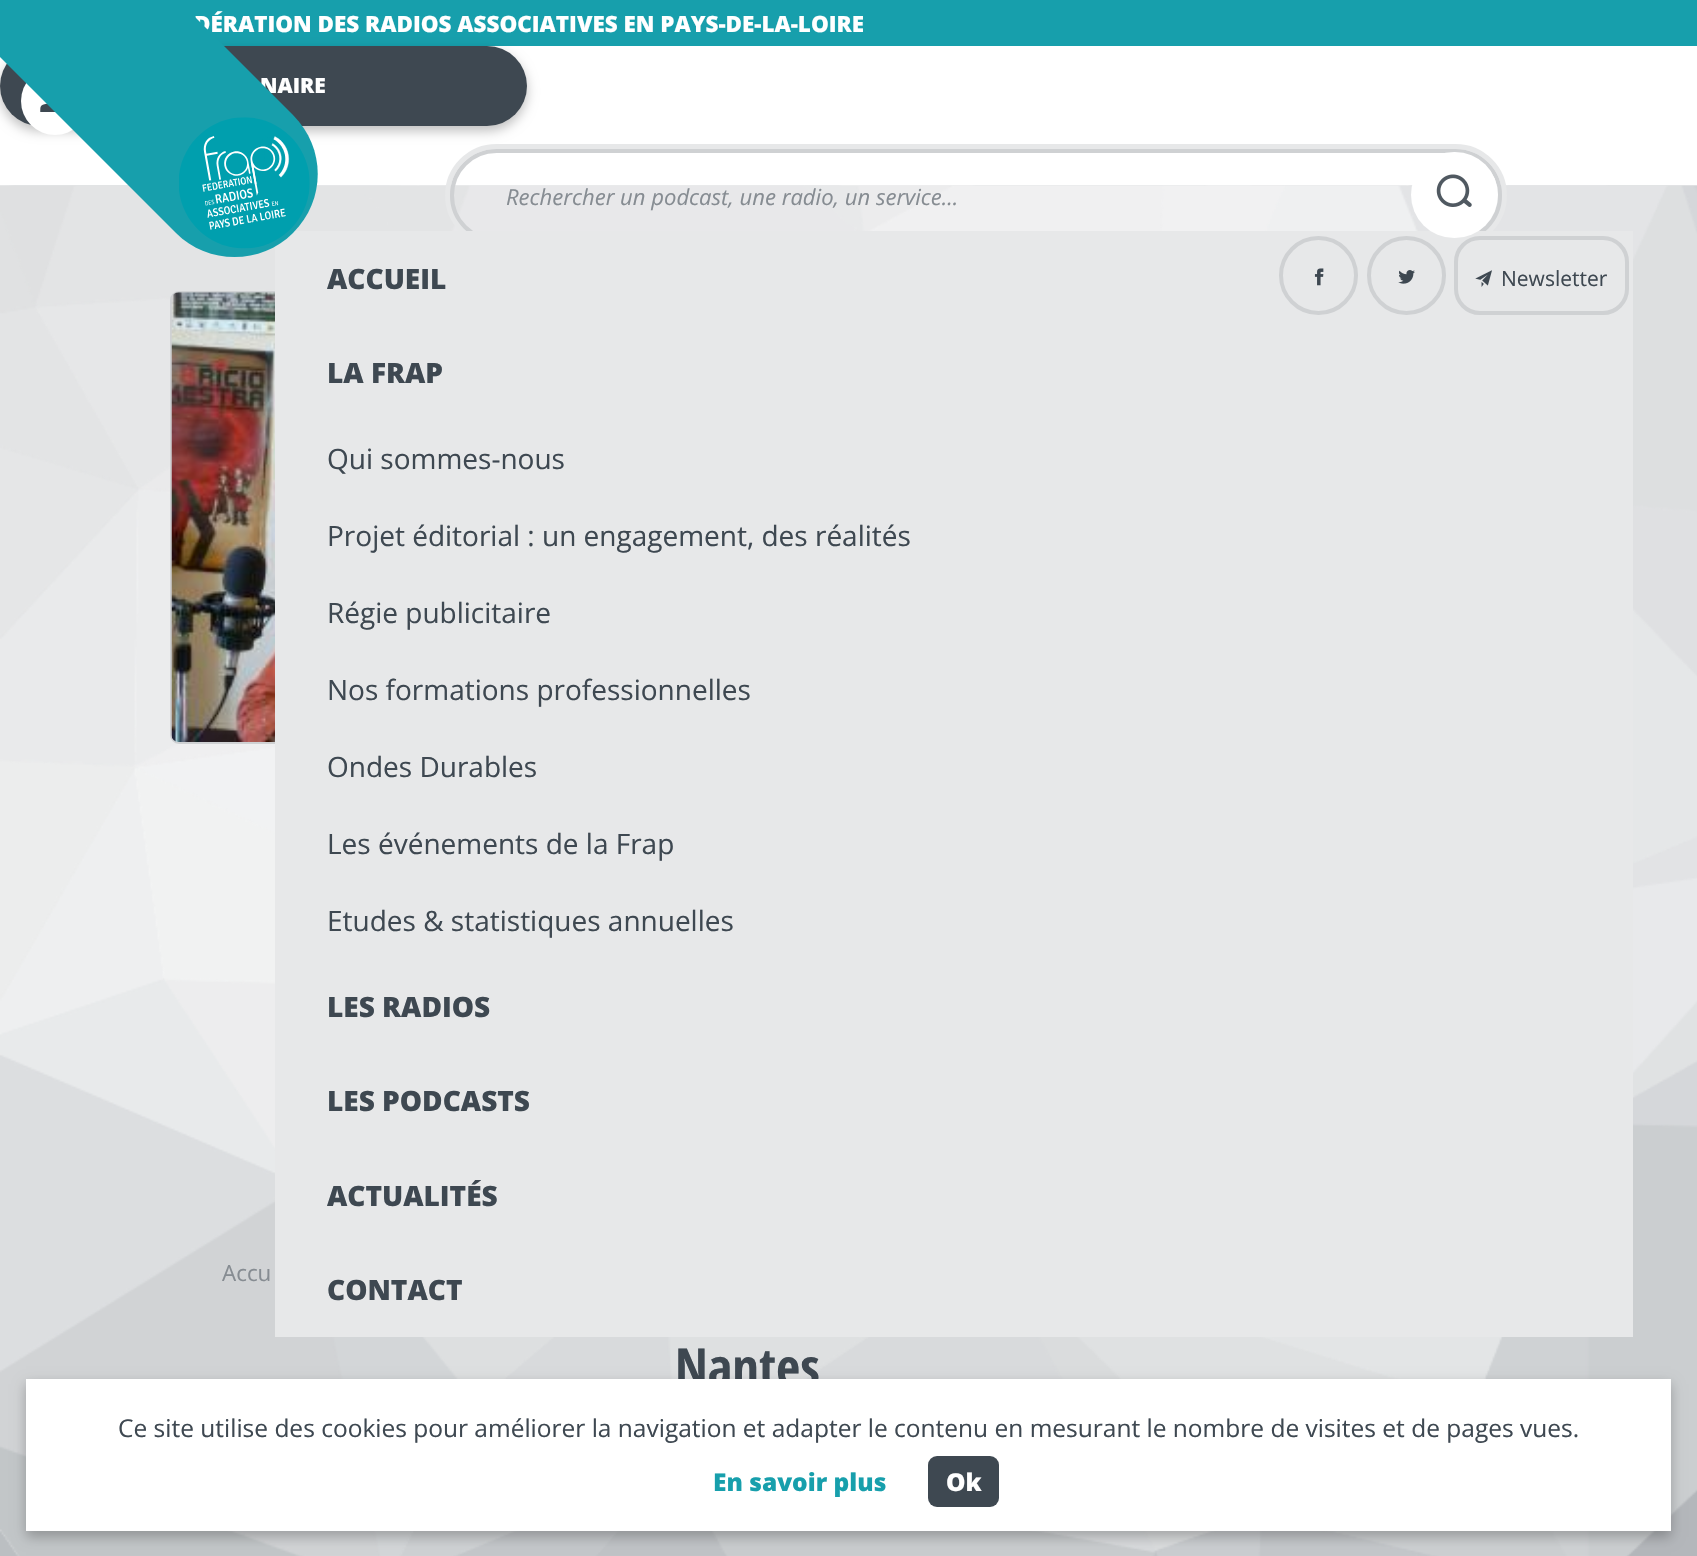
void draw(SkCanvas* c) {
SkPaint p;
p.setAntiAlias(true);
auto F=[&](const char* family, int weight, float size, bool italic = false){SkFontStyle style(weight, SkFontStyle::kNormal_Width,italic ? SkFontStyle::kItalic_Slant : SkFontStyle::kUpright_Slant);SkFont result(fontMgr->matchFamilyStyle(family, style), size);result.setSubpixel(true);return result;};
auto T=[&](const char* s, float x, float y, const SkFont& font){c->drawString(s, x, y, font, p);};
auto R=[&](float x, float y, float w, float h){c->drawRect(SkRect::MakeXYWH(x, y, w, h), p);};
auto Q=[&](float x, float y, float w, float h, float radius){c->drawRoundRect(SkRect::MakeXYWH(x, y, w, h), radius, radius, p);};
auto I=[&](const char* path, float x, float y, float w, float h){auto image = SkImages::DeferredFromEncodedData(SkData::MakeFromFileName(path));c->drawImageRect(image, SkRect::MakeXYWH(x, y, w, h), SkSamplingOptions());};
auto P=[&](const char* data, bool evenOdd = false){SkPath result = *SkParsePath::FromSVGString(data);if (evenOdd) result.setFillType(SkPathFillType::kEvenOdd);return result;};
c->clear(0xffffffff);
p.setColor(0xff179fac);
R(178,0,1519,46);
auto f1 = F("Open Sans",800,22.4);
p.setColor(0xffffffff);
T("DÉRATION DES RADIOS ASSOCIATIVES EN PAYS-DE-LA-LOIRE",194,32,f1);
p.setColor(0x40000000);
p.setMaskFilter(SkMaskFilter::MakeBlur(kNormal_SkBlurStyle, 6));
c->drawRoundRect(SkRect::MakeXYWH(0,51,527,80),40,40,p);
p.setMaskFilter(nullptr);
p.setColor(0xff3e4851);
Q(0,46,527,80,40);
p.setColor(0xffffffff);
c->drawCircle(55,101,34,p);
I("1.png",40,103,15,9);
auto f2 = F("Open Sans",800,21);
T("NAIRE",260,93,f2);
I("7.png",0,185,1697,1371);
p.setStroke(true);
p.setStrokeWidth(5);
p.setColor(0xffe7e8e9);
c->drawRoundRect(SkRect::MakeXYWH(447.5,146.5,1057,98),49,49,p);
p.setStrokeWidth(4);
p.setColor(0xffcfd1d3);
c->drawRoundRect(SkRect::MakeXYWH(452,151,1048,89),44.5,44.5,p);
p.setStrokeWidth(2);
c->drawRoundRect(SkRect::MakeXYWH(171,292,451,451),8,8,p);
p.setStroke(false);
p.setColor(0xffe7e8e9);
R(275,231,1358,1106);
p.setColor(0xff179fac);
c->drawPath(P("M-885-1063l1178 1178c33 33 33 85 0 118c-32 32-85 32-117 0l-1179-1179z"),p);
I("2.png",179,117,131,132);
auto f3 = F("Open Sans",400,22.05,true);
p.setColor(0xff868c92);
T("Rechercher un podcast, une radio, un service...",506,205,f3);
p.setStroke(true);
p.setStrokeWidth(4);
p.setColor(0xffcfd1d3);
c->drawCircle(1406.5,275.5,37.5,p);
c->drawRoundRect(SkRect::MakeXYWH(1456,238,171,75),24,24,p);
p.setStroke(false);
p.setColor(0xffffffff);
Q(1411,152,87,86,43);
I("3.png",1436,174,36,33);
auto f4 = F("Open Sans",400,22.4);
p.setColor(0xff868c92);
T("Accu",222,1281,f4);
auto f5 = F("Open Sans",800,28);
p.setColor(0xff3e4851);
T("ACCUEIL",327,289,f5);
T("LA FRAP",327,383,f5);
auto f6 = F("Open Sans",400,28);
T("Qui sommes-nous",327,469,f6);
T("Projet éditorial : un engagement, des réalités",327,546,f6);
T("Régie publicitaire",327,623,f6);
T("Nos formations professionnelles",327,700,f6);
T("Ondes Durables",327,777,f6);
T("Les événements de la Frap",327,854,f6);
T("Etudes & statistiques annuelles",327,931,f6);
T("LES RADIOS",327,1017,f5);
T("LES PODCASTS",327,1111,f5);
T("ACTUALITÉS",327,1206,f5);
T("CONTACT",327,1300,f5);
p.setStroke(true);
p.setColor(0xffcfd1d3);
c->drawCircle(1318.5,275.5,37.5,p);
I("4.png",1314,268,10,18);
I("5.png",1398,270,17,14);
I("6.png",1475,270,17,17);
auto f7 = F("Open Sans",400,21);
p.setStroke(false);
p.setColor(0xff3e4851);
T("Newsletter",1501,286,f7);
I("8.png",171,292,104,450);
auto f8 = F("Open Sans Condensed",700,52.5);
T("Nantes",675,1386,f8);
p.setColor(0x40000000);
p.setMaskFilter(SkMaskFilter::MakeBlur(kNormal_SkBlurStyle, 6));
c->drawRect(SkRect::MakeXYWH(26,1384,1645,153),p);
p.setMaskFilter(nullptr);
p.setColor(0xffffffff);
R(26,1379,1645,152);
auto f9 = F("Open Sans",400,24.5);
p.setColor(0xff3e4851);
T("Ce site utilise des cookies pour améliorer la navigation et adapter le contenu en mesurant le nombre de visites et de pages vues.",118,1437,f9);
auto f10 = F("Open Sans",800,24.5);
p.setColor(0xff179fac);
T("En savoir plus",713,1491,f10);
p.setColor(0xff3e4851);
Q(928,1456,71,51,9);
p.setColor(0xffffffff);
T("Ok",946,1491,f10);
}
